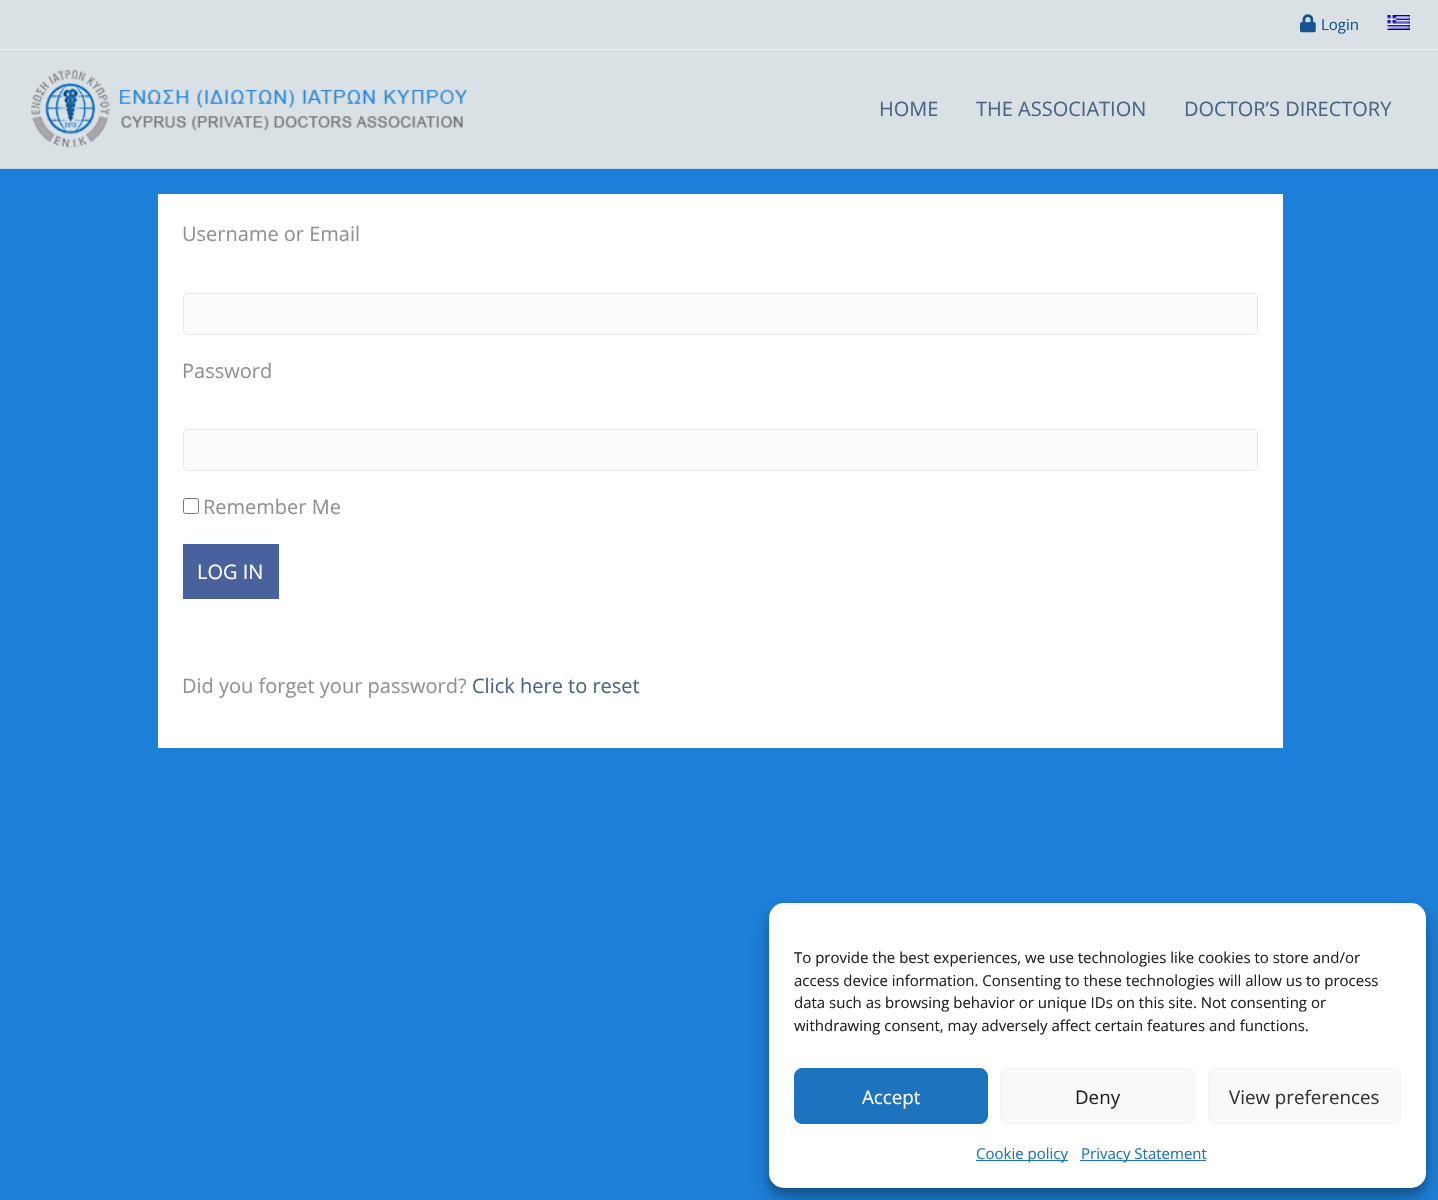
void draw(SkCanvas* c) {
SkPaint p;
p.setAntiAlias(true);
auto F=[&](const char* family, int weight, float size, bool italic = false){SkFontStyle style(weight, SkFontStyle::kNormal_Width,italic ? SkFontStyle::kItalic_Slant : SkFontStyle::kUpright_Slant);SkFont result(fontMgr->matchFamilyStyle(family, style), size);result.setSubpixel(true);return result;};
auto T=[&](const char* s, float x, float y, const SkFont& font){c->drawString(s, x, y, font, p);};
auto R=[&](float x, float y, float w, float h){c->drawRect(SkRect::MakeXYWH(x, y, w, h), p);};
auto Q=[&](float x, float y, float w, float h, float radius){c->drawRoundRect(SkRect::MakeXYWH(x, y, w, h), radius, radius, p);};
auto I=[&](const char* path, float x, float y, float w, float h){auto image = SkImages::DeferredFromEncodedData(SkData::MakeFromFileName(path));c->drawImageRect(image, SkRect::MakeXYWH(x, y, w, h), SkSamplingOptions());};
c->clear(0xff1d80d8);
p.setColor(0xffd9e1e5);
R(0,0,1438,49);
p.setColor(0xffedf1f3);
R(0,49,1438,1);
I("1.png",1300,14,16,19);
auto f1 = F("Open Sans",400,15);
p.setColor(0xff145493);
T("Login",1321,30,f1);
I("2.png",1387,15,23,15);
p.setColor(0xffd9e1e5);
R(0,50,1438,118);
p.setColor(0xffc1d4e3);
R(0,168,1438,1);
I("3.png",31,69,436,79);
auto f2 = F("Open Sans",400,20);
p.setColor(0xff4a6384);
T("HOME",879,116,f2);
T("THE ASSOCIATION",976,116,f2);
T("DOCTOR’S DIRECTORY",1184,116,f2);
p.setColor(0xffffffff);
R(158,194,1125,554);
p.setColor(0xff919191);
T("Username or Email",182,241,f2);
p.setColor(0xfffcfcfc);
c->drawRoundRect(SkRect::MakeXYWH(183.5,293.5,1074,41),4.5,4.5,p);
p.setStroke(true);
p.setStrokeWidth(1);
p.setColor(0xffe6e6e6);
c->drawRoundRect(SkRect::MakeXYWH(183.5,293.5,1074,41),4.5,4.5,p);
p.setStroke(false);
p.setColor(0xff919191);
T("Password",182,378,f2);
p.setColor(0xfffcfcfc);
c->drawRoundRect(SkRect::MakeXYWH(183.5,429.5,1074,41),4.5,4.5,p);
p.setStroke(true);
p.setColor(0xffe6e6e6);
c->drawRoundRect(SkRect::MakeXYWH(183.5,429.5,1074,41),4.5,4.5,p);
p.setColor(0xff767676);
c->drawRoundRect(SkRect::MakeXYWH(183.5,498.5,15,15),2,2,p);
p.setStroke(false);
p.setColor(0xff919191);
T("Remember Me",203,514,f2);
p.setColor(0xff49629e);
R(183,544,96,55);
p.setColor(0xffffffff);
T("LOG IN",197,579,f2);
p.setColor(0xff919191);
T("Did you forget your password?",182,693,f2);
p.setColor(0xff4a6384);
T("Click here to reset",472,693,f2);
p.setColor(0x3b000000);
p.setMaskFilter(SkMaskFilter::MakeBlur(kNormal_SkBlurStyle, 4));
c->drawRoundRect(SkRect::MakeXYWH(769,910,657,285),15,15,p);
p.setMaskFilter(nullptr);
p.setColor(0x30000000);
p.setMaskFilter(SkMaskFilter::MakeBlur(kNormal_SkBlurStyle, 12.5));
c->drawRoundRect(SkRect::MakeXYWH(769,915,657,285),15,15,p);
p.setMaskFilter(nullptr);
p.setColor(0xffffffff);
Q(769,903,657,285,15);
p.setColor(0xff222222);
T("To provide the best experiences, we use technologies like cookies to store and/or",794,963,f1);
T("access device information. Consenting to these technologies will allow us to process",794,986,f1);
T("data such as browsing behavior or unique IDs on this site. Not consenting or",794,1008,f1);
T("withdrawing consent, may adversely affect certain features and functions.",794,1031,f1);
p.setColor(0xff1e73be);
c->drawRoundRect(SkRect::MakeXYWH(794.5,1068.5,193,55),7.5,7.5,p);
p.setStroke(true);
c->drawRoundRect(SkRect::MakeXYWH(794.5,1068.5,193,55),7.5,7.5,p);
auto f3 = F("Open Sans",400,18.75);
p.setStroke(false);
p.setColor(0xffffffff);
T("Accept",862,1104,f3);
p.setColor(0xfff9f9f9);
c->drawRoundRect(SkRect::MakeXYWH(1000.5,1068.5,194,55),7.5,7.5,p);
p.setStroke(true);
p.setColor(0xfff2f2f2);
c->drawRoundRect(SkRect::MakeXYWH(1000.5,1068.5,194,55),7.5,7.5,p);
p.setStroke(false);
p.setColor(0xff222222);
T("Deny",1075,1104,f3);
p.setColor(0xfff9f9f9);
c->drawRoundRect(SkRect::MakeXYWH(1208.5,1068.5,192,55),7.5,7.5,p);
p.setStroke(true);
p.setColor(0xfff2f2f2);
c->drawRoundRect(SkRect::MakeXYWH(1208.5,1068.5,192,55),7.5,7.5,p);
p.setStroke(false);
p.setColor(0xff333333);
T("View preferences",1229,1104,f3);
p.setColor(0xff1e73be);
R(976,1160,92,1);
T("Cookie policy",976,1159,f1);
R(1080,1160,126,1);
T("Privacy Statement",1081,1159,f1);
}
